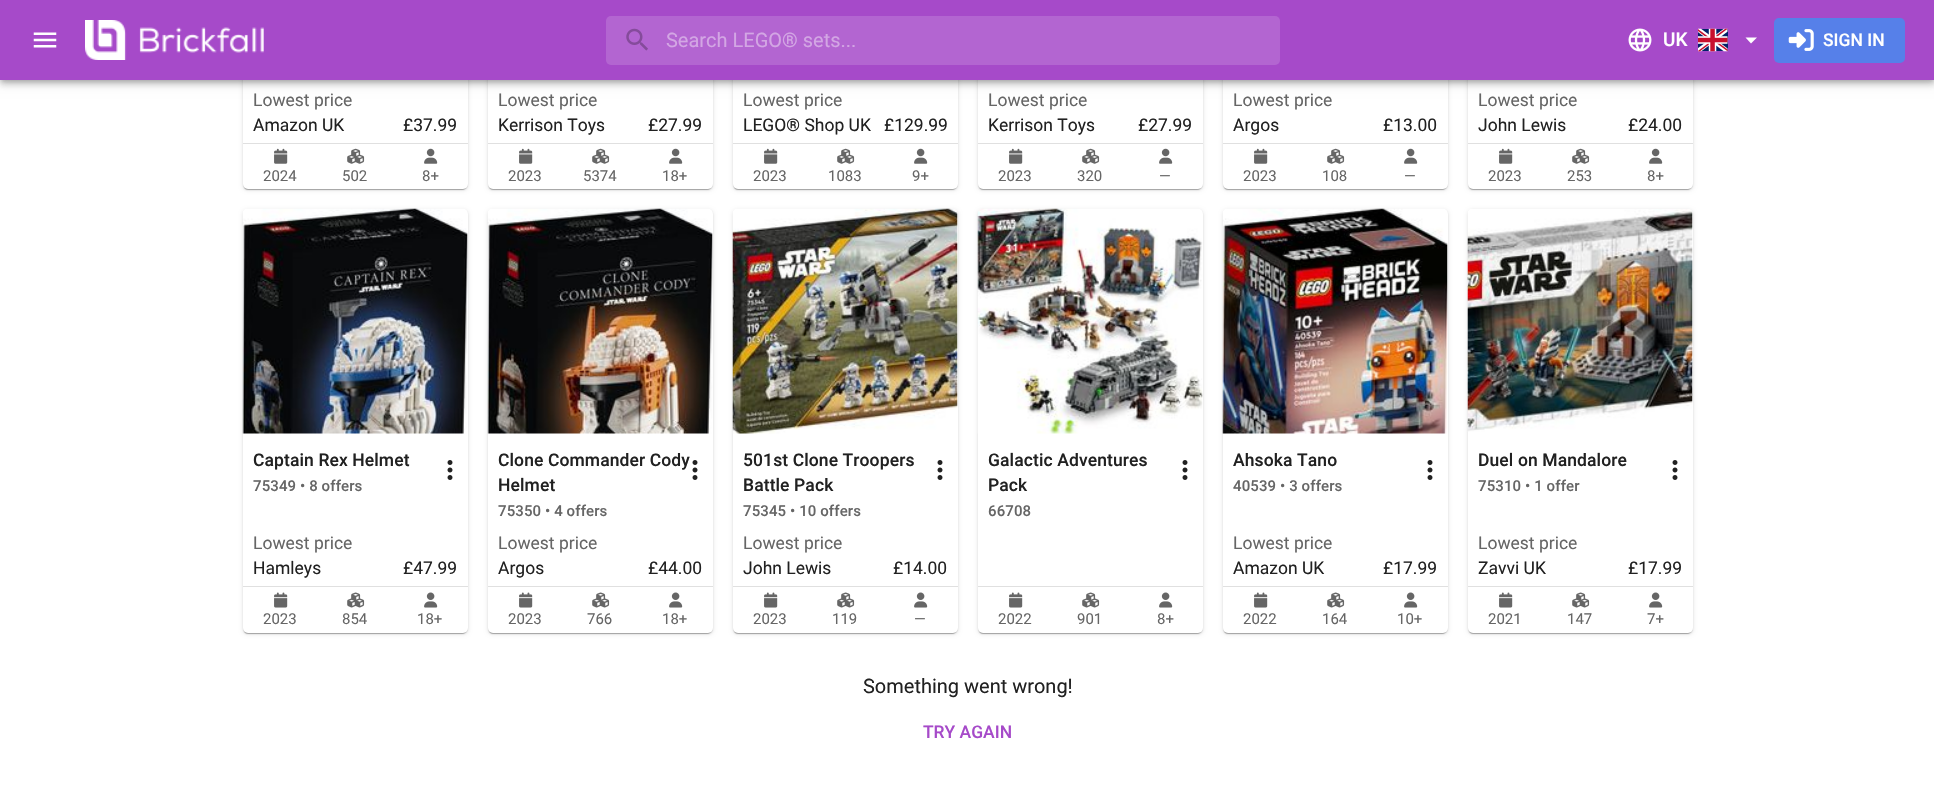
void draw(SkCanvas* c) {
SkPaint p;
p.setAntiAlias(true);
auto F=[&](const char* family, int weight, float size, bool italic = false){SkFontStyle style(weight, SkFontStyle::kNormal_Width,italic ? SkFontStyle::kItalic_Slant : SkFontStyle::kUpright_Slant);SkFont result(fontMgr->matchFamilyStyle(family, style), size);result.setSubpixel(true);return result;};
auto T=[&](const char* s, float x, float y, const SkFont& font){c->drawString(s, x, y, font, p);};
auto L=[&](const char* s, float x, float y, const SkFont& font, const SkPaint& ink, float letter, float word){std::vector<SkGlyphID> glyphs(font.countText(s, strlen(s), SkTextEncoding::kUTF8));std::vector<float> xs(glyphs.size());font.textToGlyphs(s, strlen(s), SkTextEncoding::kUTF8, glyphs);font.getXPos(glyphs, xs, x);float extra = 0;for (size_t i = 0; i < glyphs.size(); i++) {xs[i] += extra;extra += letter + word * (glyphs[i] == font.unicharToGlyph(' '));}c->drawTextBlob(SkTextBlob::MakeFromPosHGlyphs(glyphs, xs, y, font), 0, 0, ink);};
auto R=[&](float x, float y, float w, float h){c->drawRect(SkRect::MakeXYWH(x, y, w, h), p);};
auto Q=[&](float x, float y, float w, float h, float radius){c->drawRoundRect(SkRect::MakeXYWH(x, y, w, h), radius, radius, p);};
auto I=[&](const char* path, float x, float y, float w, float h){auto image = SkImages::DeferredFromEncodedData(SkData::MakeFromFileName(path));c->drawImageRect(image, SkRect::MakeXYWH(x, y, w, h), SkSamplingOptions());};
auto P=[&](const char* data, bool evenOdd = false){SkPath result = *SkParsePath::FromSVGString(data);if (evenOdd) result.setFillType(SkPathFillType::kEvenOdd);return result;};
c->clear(0xffffffff);
p.setColor(0x1f000000);
p.setMaskFilter(SkMaskFilter::MakeBlur(kNormal_SkBlurStyle, 2));
c->drawRoundRect(SkRect::MakeXYWH(243,-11,225,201),5,5,p);
p.setMaskFilter(nullptr);
p.setColor(0x24000000);
p.setMaskFilter(SkMaskFilter::MakeBlur(kNormal_SkBlurStyle, .5));
c->drawRoundRect(SkRect::MakeXYWH(243,-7,225,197),5,5,p);
p.setMaskFilter(nullptr);
p.setColor(0x33000000);
p.setMaskFilter(SkMaskFilter::MakeBlur(kNormal_SkBlurStyle, .5));
c->drawRoundRect(SkRect::MakeXYWH(244,-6,222,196),4,4,p);
p.setMaskFilter(nullptr);
p.setColor(0xffffffff);
Q(243,-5,225,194,5);
p.setColor(0x1f000000);
p.setMaskFilter(SkMaskFilter::MakeBlur(kNormal_SkBlurStyle, 2));
c->drawRoundRect(SkRect::MakeXYWH(488,-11,225,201),5,5,p);
p.setMaskFilter(nullptr);
p.setColor(0x24000000);
p.setMaskFilter(SkMaskFilter::MakeBlur(kNormal_SkBlurStyle, .5));
c->drawRoundRect(SkRect::MakeXYWH(488,-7,225,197),5,5,p);
p.setMaskFilter(nullptr);
p.setColor(0x33000000);
p.setMaskFilter(SkMaskFilter::MakeBlur(kNormal_SkBlurStyle, .5));
c->drawRoundRect(SkRect::MakeXYWH(489,-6,222,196),4,4,p);
p.setMaskFilter(nullptr);
p.setColor(0xffffffff);
Q(488,-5,225,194,5);
p.setColor(0x1f000000);
p.setMaskFilter(SkMaskFilter::MakeBlur(kNormal_SkBlurStyle, 2));
c->drawRoundRect(SkRect::MakeXYWH(733,-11,225,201),5,5,p);
p.setMaskFilter(nullptr);
p.setColor(0x24000000);
p.setMaskFilter(SkMaskFilter::MakeBlur(kNormal_SkBlurStyle, .5));
c->drawRoundRect(SkRect::MakeXYWH(733,-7,225,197),5,5,p);
p.setMaskFilter(nullptr);
p.setColor(0x33000000);
p.setMaskFilter(SkMaskFilter::MakeBlur(kNormal_SkBlurStyle, .5));
c->drawRoundRect(SkRect::MakeXYWH(734,-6,222,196),4,4,p);
p.setMaskFilter(nullptr);
p.setColor(0xffffffff);
Q(733,-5,225,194,5);
p.setColor(0x1f000000);
p.setMaskFilter(SkMaskFilter::MakeBlur(kNormal_SkBlurStyle, 2));
c->drawRoundRect(SkRect::MakeXYWH(978,-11,225,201),5,5,p);
p.setMaskFilter(nullptr);
p.setColor(0x24000000);
p.setMaskFilter(SkMaskFilter::MakeBlur(kNormal_SkBlurStyle, .5));
c->drawRoundRect(SkRect::MakeXYWH(978,-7,225,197),5,5,p);
p.setMaskFilter(nullptr);
p.setColor(0x33000000);
p.setMaskFilter(SkMaskFilter::MakeBlur(kNormal_SkBlurStyle, .5));
c->drawRoundRect(SkRect::MakeXYWH(979,-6,222,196),4,4,p);
p.setMaskFilter(nullptr);
p.setColor(0xffffffff);
Q(978,-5,225,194,5);
p.setColor(0x1f000000);
p.setMaskFilter(SkMaskFilter::MakeBlur(kNormal_SkBlurStyle, 2));
c->drawRoundRect(SkRect::MakeXYWH(1223,-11,225,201),5,5,p);
p.setMaskFilter(nullptr);
p.setColor(0x24000000);
p.setMaskFilter(SkMaskFilter::MakeBlur(kNormal_SkBlurStyle, .5));
c->drawRoundRect(SkRect::MakeXYWH(1223,-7,225,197),5,5,p);
p.setMaskFilter(nullptr);
p.setColor(0x33000000);
p.setMaskFilter(SkMaskFilter::MakeBlur(kNormal_SkBlurStyle, .5));
c->drawRoundRect(SkRect::MakeXYWH(1224,-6,222,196),4,4,p);
p.setMaskFilter(nullptr);
p.setColor(0xffffffff);
Q(1223,-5,225,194,5);
p.setColor(0x1f000000);
p.setMaskFilter(SkMaskFilter::MakeBlur(kNormal_SkBlurStyle, 2));
c->drawRoundRect(SkRect::MakeXYWH(1468,-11,225,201),5,5,p);
p.setMaskFilter(nullptr);
p.setColor(0x24000000);
p.setMaskFilter(SkMaskFilter::MakeBlur(kNormal_SkBlurStyle, .5));
c->drawRoundRect(SkRect::MakeXYWH(1468,-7,225,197),5,5,p);
p.setMaskFilter(nullptr);
p.setColor(0x33000000);
p.setMaskFilter(SkMaskFilter::MakeBlur(kNormal_SkBlurStyle, .5));
c->drawRoundRect(SkRect::MakeXYWH(1469,-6,222,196),4,4,p);
p.setMaskFilter(nullptr);
p.setColor(0xffffffff);
Q(1468,-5,225,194,5);
p.setColor(0x1f000000);
p.setMaskFilter(SkMaskFilter::MakeBlur(kNormal_SkBlurStyle, 6));
c->drawRect(SkRect::MakeXYWH(0,1,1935,80),p);
p.setMaskFilter(nullptr);
p.setColor(0x24000000);
p.setMaskFilter(SkMaskFilter::MakeBlur(kNormal_SkBlurStyle, 3));
c->drawRect(SkRect::MakeXYWH(0,5,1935,80),p);
p.setMaskFilter(nullptr);
p.setColor(0x33000000);
p.setMaskFilter(SkMaskFilter::MakeBlur(kNormal_SkBlurStyle, 2.5));
c->drawRect(SkRect::MakeXYWH(1,4,1933,77),p);
p.setMaskFilter(nullptr);
p.setColor(0xffa64ac9);
R(0,0,1934,80);
I("1.png",33,32,24,16);
I("2.png",85,20,179,40);
p.setColor(0xffb365d1);
Q(606,16,674,49,5);
I("3.png",626,28,22,23);
auto f1 = F("Roboto",400,20);
p.setColor(0xffd3a6e4);
T("Search LEGO® sets...",666,47,f1);
I("4.png",1628,28,24,24);
auto f2 = F("Roboto",500,19);
p.setColor(0xffffffff);
T("UK",1663,46,f2);
I("5.png",1698,28,30,24);
c->drawPath(P("M1745.5 37.5l5.5 6l6-6z"),p);
p.setColor(0xff5680e9);
Q(1774,18,131,45,5);
I("6.png",1788,29,26,22);
auto f3 = F("Roboto",500,17.5);
p.setColor(0xffffffff);
T("SIGN IN",1823,46,f3);
auto f4 = F("Roboto",400,17.5);
p.setColor(0xff666666);
T("Lowest price",253,106,f4);
p.setColor(0xff212121);
T("Amazon UK",253,131,f4);
T("£37.99",403,131,f4);
p.setColor(0xffe0e0e0);
R(243,143,225,1);
I("7.png",274,148,14,16);
auto f5 = F("Roboto",400,15);
p.setColor(0xff666666);
T("2024",263,181,f5);
I("8.png",347,148,18,16);
T("502",342,181,f5);
I("9.png",424,148,14,16);
T("8+",422,181,f5);
T("Lowest price",498,106,f4);
p.setColor(0xff212121);
T("Kerrison Toys",498,131,f4);
T("£27.99",648,131,f4);
p.setColor(0xffe0e0e0);
R(488,143,225,1);
I("7.png",519,148,14,16);
p.setColor(0xff666666);
T("2023",508,181,f5);
I("8.png",592,148,18,16);
T("5374",583,181,f5);
I("9.png",669,148,14,16);
T("18+",662,181,f5);
T("Lowest price",743,106,f4);
p.setColor(0xff212121);
T("LEGO® Shop UK",743,131,f4);
T("£129.99",884,131,f4);
p.setColor(0xffe0e0e0);
R(733,143,225,1);
I("7.png",764,148,14,16);
p.setColor(0xff666666);
T("2023",753,181,f5);
I("8.png",837,148,18,16);
T("1083",828,181,f5);
I("9.png",914,148,14,16);
T("9+",912,181,f5);
T("Lowest price",988,106,f4);
p.setColor(0xff212121);
T("Kerrison Toys",988,131,f4);
T("£27.99",1138,131,f4);
p.setColor(0xffe0e0e0);
R(978,143,225,1);
I("7.png",1009,148,14,16);
p.setColor(0xff666666);
T("2023",998,181,f5);
I("8.png",1082,148,18,16);
T("320",1077,181,f5);
I("9.png",1159,148,14,16);
T("—",1159,181,f5);
T("Lowest price",1233,106,f4);
p.setColor(0xff212121);
T("Argos",1233,131,f4);
T("£13.00",1383,131,f4);
p.setColor(0xffe0e0e0);
R(1223,143,225,1);
I("7.png",1254,148,14,16);
p.setColor(0xff666666);
T("2023",1243,181,f5);
I("8.png",1327,148,18,16);
T("108",1322,181,f5);
I("9.png",1404,148,14,16);
T("—",1404,181,f5);
T("Lowest price",1478,106,f4);
p.setColor(0xff212121);
T("John Lewis",1478,131,f4);
T("£24.00",1628,131,f4);
p.setColor(0xffe0e0e0);
R(1468,143,225,1);
I("7.png",1499,148,14,16);
p.setColor(0xff666666);
T("2023",1488,181,f5);
I("8.png",1572,148,18,16);
T("253",1567,181,f5);
I("9.png",1649,148,14,16);
T("8+",1647,181,f5);
p.setColor(0x1f000000);
p.setMaskFilter(SkMaskFilter::MakeBlur(kNormal_SkBlurStyle, 2));
c->drawRoundRect(SkRect::MakeXYWH(243,210,225,424),5,5,p);
p.setMaskFilter(nullptr);
p.setColor(0x24000000);
p.setMaskFilter(SkMaskFilter::MakeBlur(kNormal_SkBlurStyle, .5));
c->drawRoundRect(SkRect::MakeXYWH(243,210,225,424),5,5,p);
p.setMaskFilter(nullptr);
p.setColor(0x33000000);
p.setMaskFilter(SkMaskFilter::MakeBlur(kNormal_SkBlurStyle, .5));
c->drawRoundRect(SkRect::MakeXYWH(244,213,222,421),4,4,p);
p.setMaskFilter(nullptr);
p.setColor(0xffffffff);
Q(243,209,225,424,5);
I("10.png",242,208,226,226);
p.setColor(0xff212121);
L("Captain Rex Helmet",253,466,f3,p,.1,0);
auto f6 = F("Roboto",500,15);
p.setColor(0xff666666);
L("75349 • 8 offers",253,491,f6,p,.1,0);
T("Lowest price",253,549,f4);
p.setColor(0xff212121);
T("Hamleys",253,574,f4);
T("£47.99",403,574,f4);
p.setColor(0xffe0e0e0);
R(243,586,225,1);
I("11.png",274,592,14,16);
p.setColor(0xff666666);
T("2023",263,624,f5);
I("12.png",347,592,18,16);
T("854",342,624,f5);
I("13.png",424,592,14,16);
T("18+",417,624,f5);
I("14.png",447,460,6,20);
p.setColor(0x1f000000);
p.setMaskFilter(SkMaskFilter::MakeBlur(kNormal_SkBlurStyle, 2));
c->drawRoundRect(SkRect::MakeXYWH(488,210,225,424),5,5,p);
p.setMaskFilter(nullptr);
p.setColor(0x24000000);
p.setMaskFilter(SkMaskFilter::MakeBlur(kNormal_SkBlurStyle, .5));
c->drawRoundRect(SkRect::MakeXYWH(488,210,225,424),5,5,p);
p.setMaskFilter(nullptr);
p.setColor(0x33000000);
p.setMaskFilter(SkMaskFilter::MakeBlur(kNormal_SkBlurStyle, .5));
c->drawRoundRect(SkRect::MakeXYWH(489,213,222,421),4,4,p);
p.setMaskFilter(nullptr);
p.setColor(0xffffffff);
Q(488,209,225,424,5);
I("15.png",487,208,226,226);
p.setColor(0xff212121);
L("Clone Commander Cody",498,466,f3,p,.1,0);
L("Helmet",498,491,f3,p,.1,0);
p.setColor(0xff666666);
L("75350 • 4 offers",498,516,f6,p,.1,0);
T("Lowest price",498,549,f4);
p.setColor(0xff212121);
T("Argos",498,574,f4);
T("£44.00",648,574,f4);
p.setColor(0xffe0e0e0);
R(488,586,225,1);
I("11.png",519,592,14,16);
p.setColor(0xff666666);
T("2023",508,624,f5);
I("12.png",592,592,18,16);
T("766",587,624,f5);
I("13.png",669,592,14,16);
T("18+",662,624,f5);
I("14.png",692,460,6,20);
p.setColor(0x1f000000);
p.setMaskFilter(SkMaskFilter::MakeBlur(kNormal_SkBlurStyle, 2));
c->drawRoundRect(SkRect::MakeXYWH(733,210,225,424),5,5,p);
p.setMaskFilter(nullptr);
p.setColor(0x24000000);
p.setMaskFilter(SkMaskFilter::MakeBlur(kNormal_SkBlurStyle, .5));
c->drawRoundRect(SkRect::MakeXYWH(733,210,225,424),5,5,p);
p.setMaskFilter(nullptr);
p.setColor(0x33000000);
p.setMaskFilter(SkMaskFilter::MakeBlur(kNormal_SkBlurStyle, .5));
c->drawRoundRect(SkRect::MakeXYWH(734,213,222,421),4,4,p);
p.setMaskFilter(nullptr);
p.setColor(0xffffffff);
Q(733,209,225,424,5);
I("16.png",732,208,226,226);
p.setColor(0xff212121);
L("501st Clone Troopers",743,466,f3,p,.1,0);
L("Battle Pack",743,491,f3,p,.1,0);
p.setColor(0xff666666);
L("75345 • 10 offers",743,516,f6,p,.1,0);
T("Lowest price",743,549,f4);
p.setColor(0xff212121);
T("John Lewis",743,574,f4);
T("£14.00",893,574,f4);
p.setColor(0xffe0e0e0);
R(733,586,225,1);
I("11.png",764,592,14,16);
p.setColor(0xff666666);
T("2023",753,624,f5);
I("12.png",837,592,18,16);
T("119",832,624,f5);
I("13.png",914,592,14,16);
T("—",914,624,f5);
I("14.png",937,460,6,20);
p.setColor(0x1f000000);
p.setMaskFilter(SkMaskFilter::MakeBlur(kNormal_SkBlurStyle, 2));
c->drawRoundRect(SkRect::MakeXYWH(978,210,225,424),5,5,p);
p.setMaskFilter(nullptr);
p.setColor(0x24000000);
p.setMaskFilter(SkMaskFilter::MakeBlur(kNormal_SkBlurStyle, .5));
c->drawRoundRect(SkRect::MakeXYWH(978,210,225,424),5,5,p);
p.setMaskFilter(nullptr);
p.setColor(0x33000000);
p.setMaskFilter(SkMaskFilter::MakeBlur(kNormal_SkBlurStyle, .5));
c->drawRoundRect(SkRect::MakeXYWH(979,213,222,421),4,4,p);
p.setMaskFilter(nullptr);
p.setColor(0xffffffff);
Q(978,209,225,424,5);
I("17.png",977,208,226,226);
p.setColor(0xff212121);
L("Galactic Adventures",988,466,f3,p,.1,0);
L("Pack",988,491,f3,p,.1,0);
p.setColor(0xff666666);
L("66708",988,516,f6,p,.1,0);
p.setColor(0xffe0e0e0);
R(978,586,225,1);
I("11.png",1009,592,14,16);
p.setColor(0xff666666);
T("2022",998,624,f5);
I("12.png",1082,592,18,16);
T("901",1077,624,f5);
I("13.png",1159,592,14,16);
T("8+",1157,624,f5);
I("14.png",1182,460,6,20);
p.setColor(0x1f000000);
p.setMaskFilter(SkMaskFilter::MakeBlur(kNormal_SkBlurStyle, 2));
c->drawRoundRect(SkRect::MakeXYWH(1223,210,225,424),5,5,p);
p.setMaskFilter(nullptr);
p.setColor(0x24000000);
p.setMaskFilter(SkMaskFilter::MakeBlur(kNormal_SkBlurStyle, .5));
c->drawRoundRect(SkRect::MakeXYWH(1223,210,225,424),5,5,p);
p.setMaskFilter(nullptr);
p.setColor(0x33000000);
p.setMaskFilter(SkMaskFilter::MakeBlur(kNormal_SkBlurStyle, .5));
c->drawRoundRect(SkRect::MakeXYWH(1224,213,222,421),4,4,p);
p.setMaskFilter(nullptr);
p.setColor(0xffffffff);
Q(1223,209,225,424,5);
I("18.png",1222,208,226,226);
p.setColor(0xff212121);
L("Ahsoka Tano",1233,466,f3,p,.1,0);
p.setColor(0xff666666);
L("40539 • 3 offers",1233,491,f6,p,.1,0);
T("Lowest price",1233,549,f4);
p.setColor(0xff212121);
T("Amazon UK",1233,574,f4);
T("£17.99",1383,574,f4);
p.setColor(0xffe0e0e0);
R(1223,586,225,1);
I("11.png",1254,592,14,16);
p.setColor(0xff666666);
T("2022",1243,624,f5);
I("12.png",1327,592,18,16);
T("164",1322,624,f5);
I("13.png",1404,592,14,16);
T("10+",1397,624,f5);
I("14.png",1427,460,6,20);
p.setColor(0x1f000000);
p.setMaskFilter(SkMaskFilter::MakeBlur(kNormal_SkBlurStyle, 2));
c->drawRoundRect(SkRect::MakeXYWH(1468,210,225,424),5,5,p);
p.setMaskFilter(nullptr);
p.setColor(0x24000000);
p.setMaskFilter(SkMaskFilter::MakeBlur(kNormal_SkBlurStyle, .5));
c->drawRoundRect(SkRect::MakeXYWH(1468,210,225,424),5,5,p);
p.setMaskFilter(nullptr);
p.setColor(0x33000000);
p.setMaskFilter(SkMaskFilter::MakeBlur(kNormal_SkBlurStyle, .5));
c->drawRoundRect(SkRect::MakeXYWH(1469,213,222,421),4,4,p);
p.setMaskFilter(nullptr);
p.setColor(0xffffffff);
Q(1468,209,225,424,5);
I("19.png",1467,209,226,223);
p.setColor(0xff212121);
L("Duel on Mandalore",1478,466,f3,p,.1,0);
p.setColor(0xff666666);
L("75310 • 1 offer",1478,491,f6,p,.1,0);
T("Lowest price",1478,549,f4);
p.setColor(0xff212121);
T("Zavvi UK",1478,574,f4);
T("£17.99",1628,574,f4);
p.setColor(0xffe0e0e0);
R(1468,586,225,1);
I("11.png",1499,592,14,16);
p.setColor(0xff666666);
T("2021",1488,624,f5);
I("12.png",1572,592,18,16);
T("147",1567,624,f5);
I("13.png",1649,592,14,16);
T("7+",1647,624,f5);
I("14.png",1672,460,6,20);
p.setColor(0xff212121);
T("Something went wrong!",863,693,f1);
p.setColor(0xffa64ac9);
T("TRY AGAIN",923,738,f3);
}
